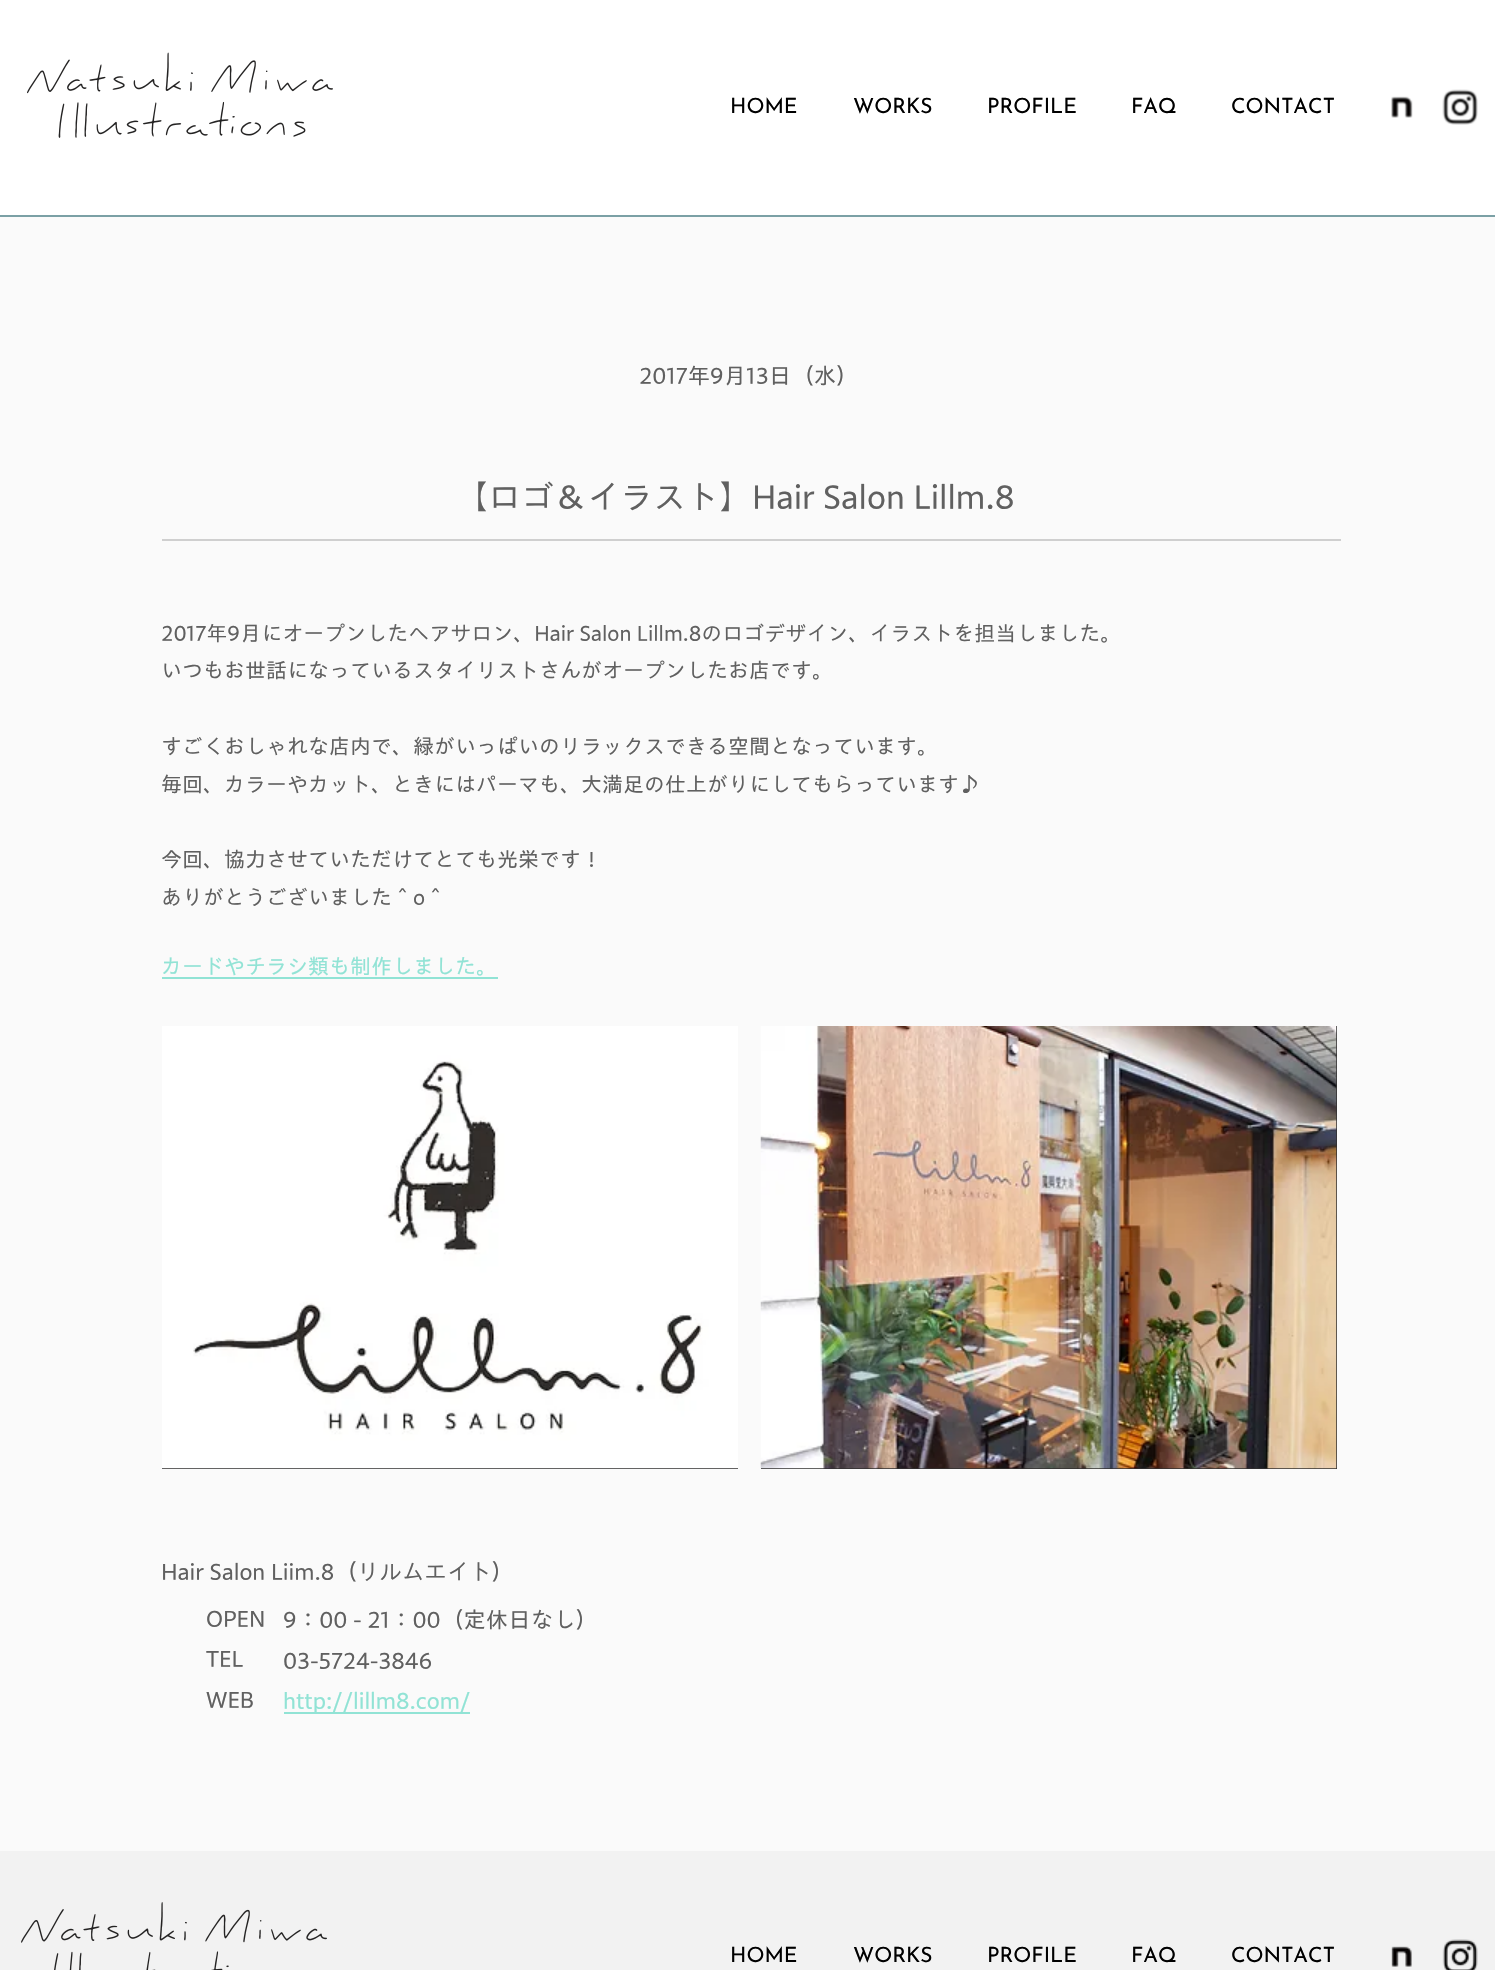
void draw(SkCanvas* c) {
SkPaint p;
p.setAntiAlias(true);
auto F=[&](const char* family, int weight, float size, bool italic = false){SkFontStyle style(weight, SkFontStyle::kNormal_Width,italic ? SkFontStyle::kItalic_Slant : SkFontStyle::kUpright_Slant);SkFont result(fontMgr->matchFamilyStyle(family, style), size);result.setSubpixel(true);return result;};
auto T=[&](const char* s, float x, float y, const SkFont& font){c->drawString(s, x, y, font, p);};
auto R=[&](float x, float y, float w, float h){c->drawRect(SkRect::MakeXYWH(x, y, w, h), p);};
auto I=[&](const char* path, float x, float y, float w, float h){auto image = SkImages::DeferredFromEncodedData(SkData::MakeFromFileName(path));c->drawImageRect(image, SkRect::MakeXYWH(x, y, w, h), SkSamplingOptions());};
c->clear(0xfffafafa);
p.setColor(0xff7ba0a5);
R(0,215,1495,2);
p.setColor(0xffffffff);
R(0,0,1495,215);
I("1.png",27,52,306,86);
auto f1 = F("Josefin Sans",400,21);
p.setColor(0xff000000);
T("HOME",730,113,f1);
T("WORKS",853,113,f1);
T("PROFILE",987,113,f1);
T("FAQ",1131,113,f1);
T("CONTACT",1231,113,f1);
I("2.png",1391,96,22,22);
I("3.png",1442,89,36,36);
auto f2 = F("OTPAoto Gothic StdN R",400,22.5);
p.setColor(0xff606060);
T("2017年9月13日（水）",639,384,f2);
auto f3 = F("OTPAoto Gothic StdN R",400,33);
T("【ロゴ＆イラスト】Hair Salon Lillm.8",455,509,f3);
p.setColor(0xffcfcfcf);
R(162,539,1179,2);
auto f4 = F("OTPAoto Gothic StdN R",400,21);
p.setColor(0xff606060);
T("2017年9月にオープンしたヘアサロン、Hair Salon Lillm.8のロゴデザイン、イラストを担当しました。",161,641,f4);
T("いつもお世話になっているスタイリストさんがオープンしたお店です。",161,678,f4);
T("すごくおしゃれな店内で、緑がいっぱいのリラックスできる空間となっています。",161,754,f4);
T("毎回、カラーやカット、ときにはパーマも、大満足の仕上がりにしてもらっています♪",161,792,f4);
T("今回、協力させていただけてとても光栄です！",161,867,f4);
T("ありがとうございました＾o＾",161,905,f4);
p.setColor(0xff91e3d5);
T("カードやチラシ類も制作しました。",161,974,f4);
R(162,977,336,2);
p.setColor(0xff2f2e2e);
R(162,1468,576,1);
I("4.png",162,1026,576,443);
R(761,1026,576,443);
I("5.png",760,1026,577,443);
p.setColor(0xff606060);
T("Hair Salon Liim.8（リルムエイト）",161,1580,f2);
T("OPEN",206,1627,f2);
T("TEL",206,1667,f2);
T("WEB",206,1708,f2);
T("9：00 - 21：00（定休日なし）",283,1628,f2);
T("03-5724-3846",283,1669,f2);
p.setColor(0xff91e3d5);
R(284,1712,186,2);
T("http://lillm8.com/",283,1709,f2);
p.setColor(0xfff2f2f2);
R(0,1851,1495,119);
I("6.png",21,1902,306,68);
p.setColor(0xff000000);
T("HOME",730,1962,f1);
T("WORKS",853,1962,f1);
T("PROFILE",987,1962,f1);
T("FAQ",1131,1962,f1);
T("CONTACT",1231,1962,f1);
I("7.png",1391,1946,21,21);
I("8.png",1442,1939,36,31);
}
